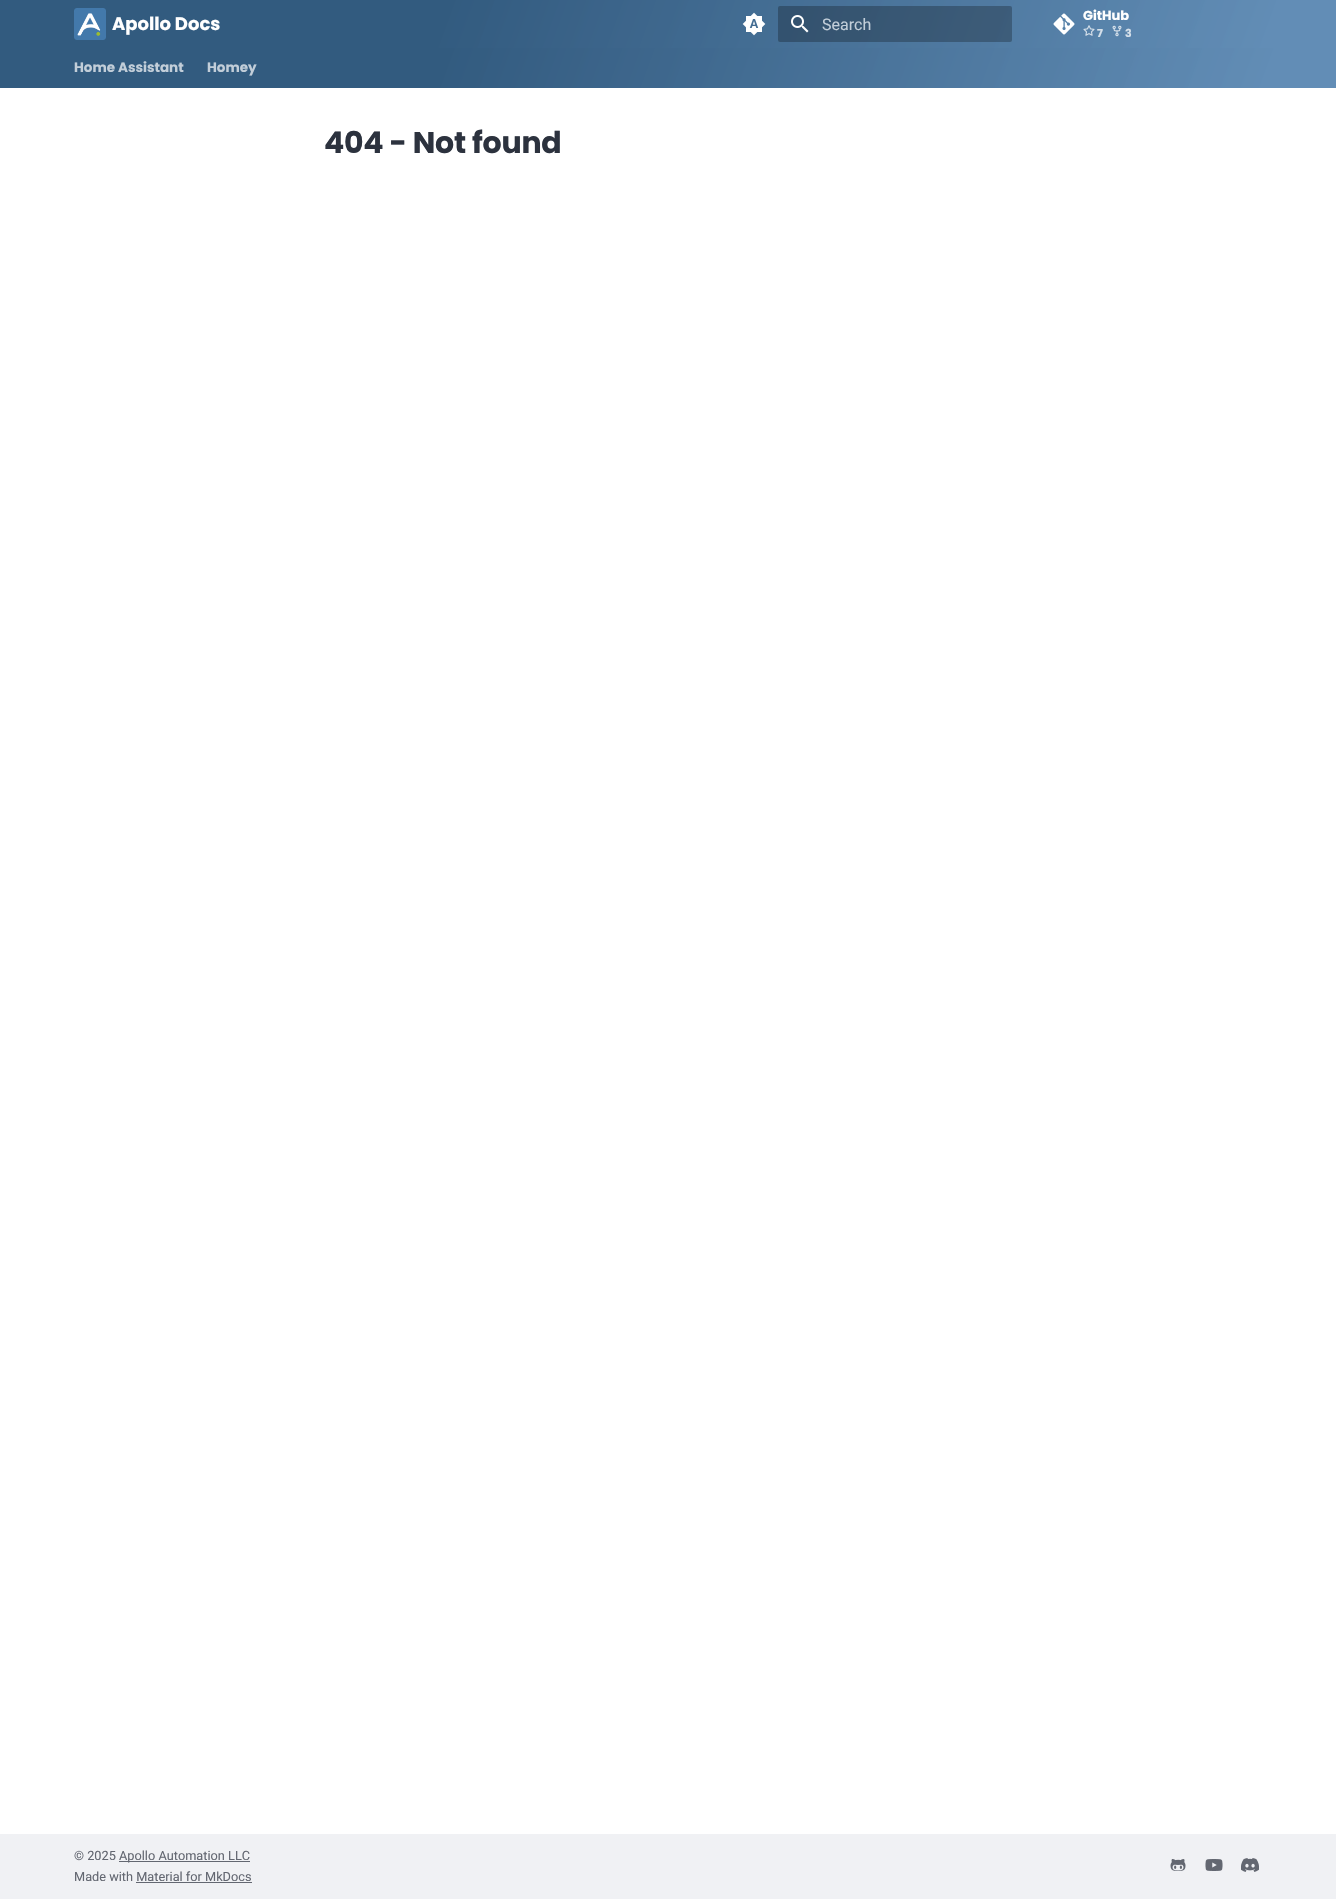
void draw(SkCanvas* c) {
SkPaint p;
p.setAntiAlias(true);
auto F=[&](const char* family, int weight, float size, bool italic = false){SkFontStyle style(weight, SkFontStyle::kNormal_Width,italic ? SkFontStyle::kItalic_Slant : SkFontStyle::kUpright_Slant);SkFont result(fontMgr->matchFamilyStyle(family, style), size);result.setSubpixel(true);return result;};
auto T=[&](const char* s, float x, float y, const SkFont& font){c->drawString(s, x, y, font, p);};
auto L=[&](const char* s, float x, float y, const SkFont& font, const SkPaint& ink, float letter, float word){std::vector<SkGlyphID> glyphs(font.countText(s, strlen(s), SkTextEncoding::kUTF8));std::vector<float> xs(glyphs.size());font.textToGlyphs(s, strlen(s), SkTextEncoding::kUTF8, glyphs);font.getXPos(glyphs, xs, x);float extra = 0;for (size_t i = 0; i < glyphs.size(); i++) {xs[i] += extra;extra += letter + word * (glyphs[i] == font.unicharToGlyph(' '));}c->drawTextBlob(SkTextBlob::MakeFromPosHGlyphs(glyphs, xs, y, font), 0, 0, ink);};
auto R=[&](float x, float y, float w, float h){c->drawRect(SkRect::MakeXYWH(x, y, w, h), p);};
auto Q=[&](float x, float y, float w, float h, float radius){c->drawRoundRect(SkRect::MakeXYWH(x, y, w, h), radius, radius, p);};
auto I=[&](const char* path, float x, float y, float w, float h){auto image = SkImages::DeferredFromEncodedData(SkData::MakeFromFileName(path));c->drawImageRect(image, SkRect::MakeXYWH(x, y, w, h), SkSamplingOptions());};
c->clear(0xffffffff);
{
const SkColor colors[] = {0xff4379aa,0xff73a6d6};
const float stops[] = {.33,.95};
const SkPoint ends[] = {{70,-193}, {1266,241}};
p.setShader(SkGradientShader::MakeLinear(ends, colors, stops, 2, SkTileMode::kClamp));
p.setAlpha(255);
}
R(0,0,1336,48);
{
const SkColor colors[] = {0x40000000,0x26000000};
const float stops[] = {.33,.95};
const SkPoint ends[] = {{70,-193}, {1266,241}};
p.setShader(SkGradientShader::MakeLinear(ends, colors, stops, 2, SkTileMode::kClamp));
p.setAlpha(255);
}
R(0,0,1336,48);
I("1.png",74,8,32,32);
auto f1 = F("Poppins",700,18);
p.setShader(nullptr);
p.setColor(0xffffffff);
T("Apollo Docs",112,30,f1);
I("2.png",742,12,24,24);
p.setColor(0x42000000);
Q(778,6,234,36,2);
I("3.png",791,15,18,18);
auto f2 = F("Roboto",400,16);
p.setColor(0xffc2ced9);
T("Search",822,30,f2);
I("4.png",1053,13,22,22);
auto f3 = F("Poppins",700,13);
p.setColor(0xffffffff);
T("GitHub",1083,20,f3);
I("5.png",1083,25,12,11);
auto f4 = F("Poppins",700,11);
p.setColor(0xffd5e0ea);
T("7",1097,37,f4);
I("6.png",1112,25,10,12);
T("3",1125,37,f4);
{
const SkColor colors[] = {0xff4379aa,0xff73a6d6};
const float stops[] = {.33,.95};
const SkPoint ends[] = {{72,-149}, {1264,285}};
p.setShader(SkGradientShader::MakeLinear(ends, colors, stops, 2, SkTileMode::kClamp));
p.setAlpha(255);
}
R(0,48,1336,40);
{
const SkColor colors[] = {0x40000000,0x26000000};
const float stops[] = {.33,.95};
const SkPoint ends[] = {{72,-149}, {1264,285}};
p.setShader(SkGradientShader::MakeLinear(ends, colors, stops, 2, SkTileMode::kClamp));
p.setAlpha(255);
}
R(0,48,1336,40);
auto f5 = F("Poppins",700,13.5);
p.setShader(nullptr);
p.setColor(0xffc2ced9);
T("Home Assistant",74,72,f5);
T("Homey",207,72,f5);
auto f6 = F("Poppins",700,30);
p.setColor(0xff2c323e);
L("404 - Not found",324,153,f6,p,-.25,0);
p.setColor(0xfff0f1f4);
R(0,1834,1336,65);
auto f7 = F("Roboto",400,12.75);
p.setColor(0xff636771);
T("© 2025",74,1860,f7);
R(119,1861,131,1);
T("Apollo Automation LLC",119,1860,f7);
T("Made with Material for MkDocs",74,1881,f7);
R(136,1882,116,1);
I("7.png",1170,1859,16,12);
I("8.png",1205,1859,18,12);
I("9.png",1241,1858,18,14);
}
